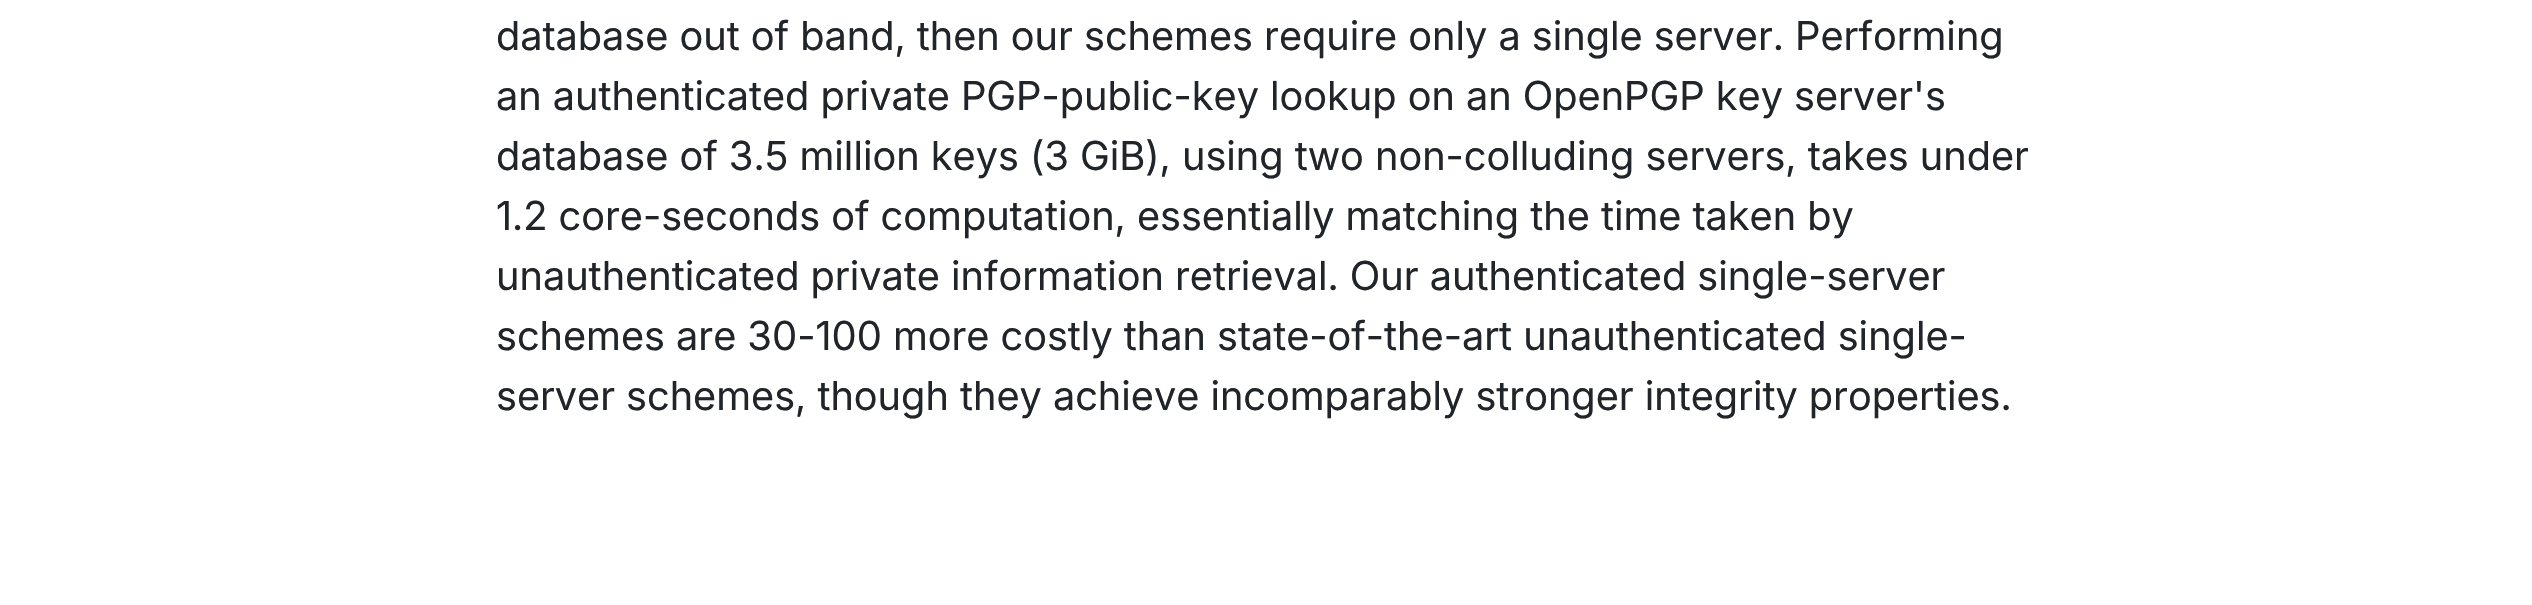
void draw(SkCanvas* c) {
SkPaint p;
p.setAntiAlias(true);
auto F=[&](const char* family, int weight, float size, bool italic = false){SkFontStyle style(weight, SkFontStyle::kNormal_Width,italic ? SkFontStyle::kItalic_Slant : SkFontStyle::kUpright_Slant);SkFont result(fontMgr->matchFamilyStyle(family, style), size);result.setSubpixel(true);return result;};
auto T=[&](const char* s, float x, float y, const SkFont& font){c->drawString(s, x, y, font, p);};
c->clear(0xffffffff);
auto f1 = F("Inter",400,40);
p.setColor(0xff212529);
T("database out of band, then our schemes require only a single server. Performing",496,50,f1);
T("an authenticated private PGP-public-key lookup on an OpenPGP key server's",496,110,f1);
T("database of 3.5 million keys (3 GiB), using two non-colluding servers, takes under",496,170,f1);
T("1.2 core-seconds of computation, essentially matching the time taken by",496,230,f1);
T("unauthenticated private information retrieval. Our authenticated single-server",496,290,f1);
T("schemes are 30-100 more costly than state-of-the-art unauthenticated single-",496,350,f1);
T("server schemes, though they achieve incomparably stronger integrity properties.",496,410,f1);
}
